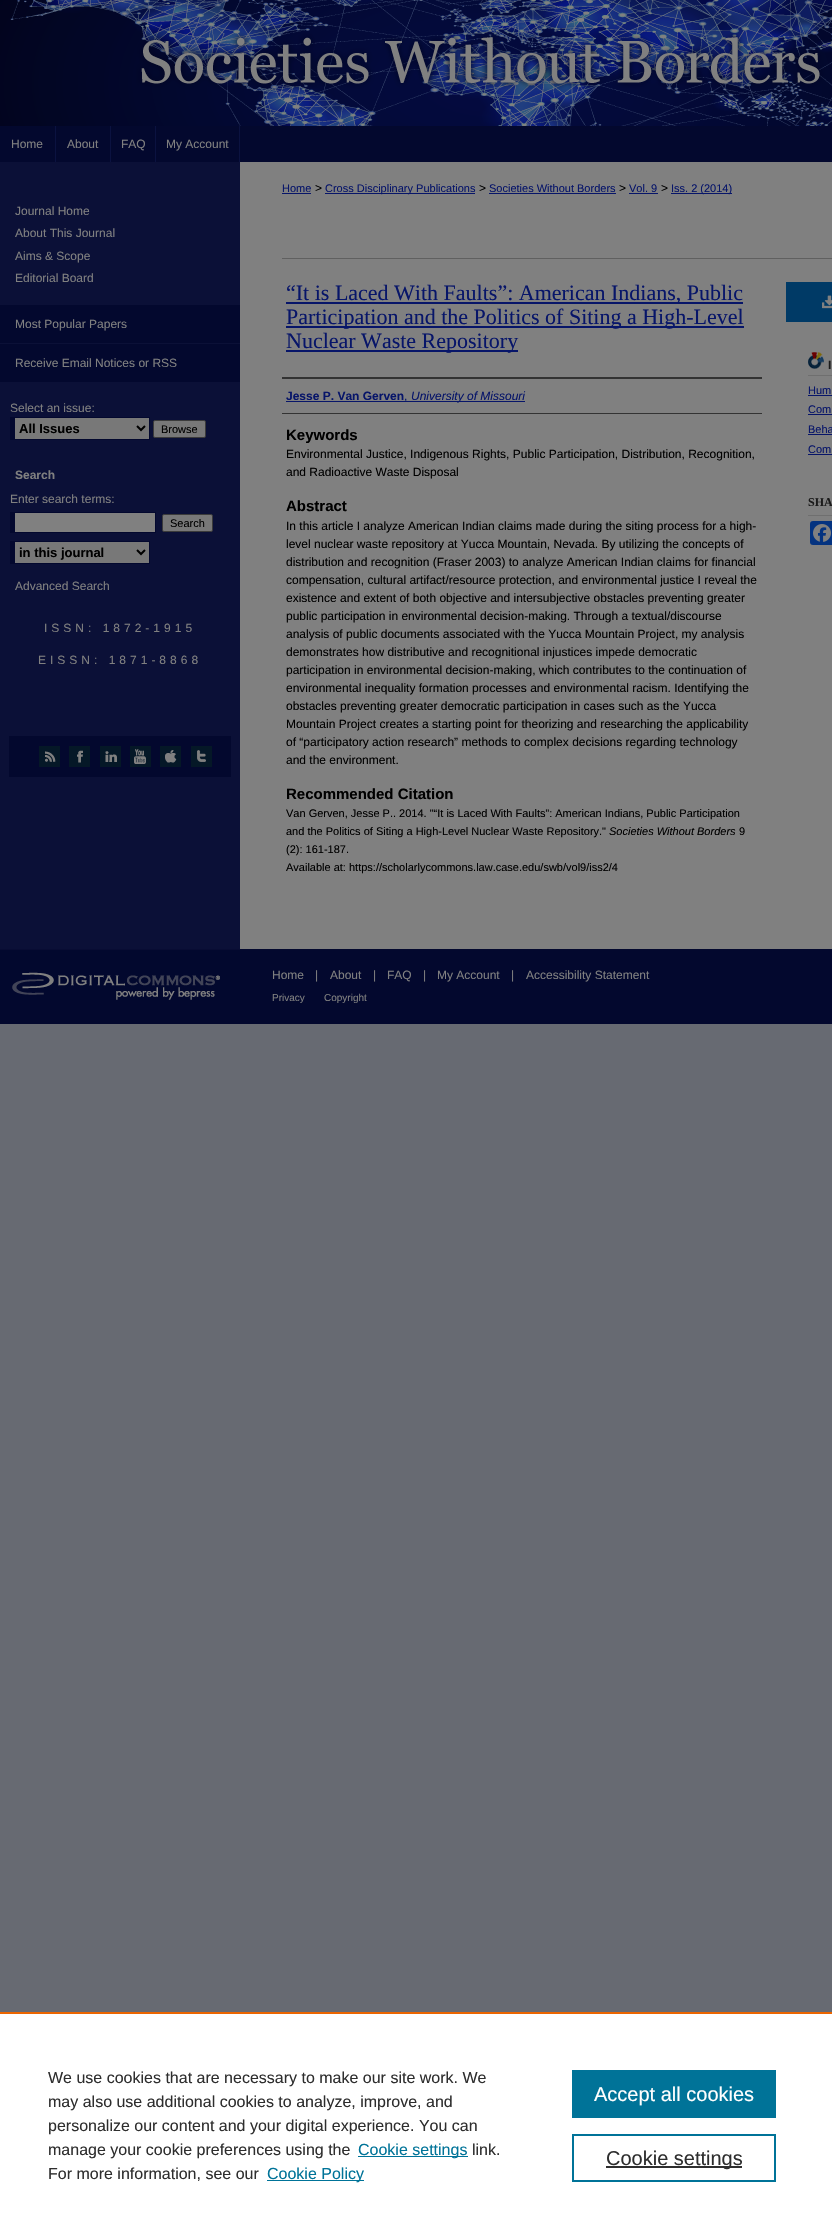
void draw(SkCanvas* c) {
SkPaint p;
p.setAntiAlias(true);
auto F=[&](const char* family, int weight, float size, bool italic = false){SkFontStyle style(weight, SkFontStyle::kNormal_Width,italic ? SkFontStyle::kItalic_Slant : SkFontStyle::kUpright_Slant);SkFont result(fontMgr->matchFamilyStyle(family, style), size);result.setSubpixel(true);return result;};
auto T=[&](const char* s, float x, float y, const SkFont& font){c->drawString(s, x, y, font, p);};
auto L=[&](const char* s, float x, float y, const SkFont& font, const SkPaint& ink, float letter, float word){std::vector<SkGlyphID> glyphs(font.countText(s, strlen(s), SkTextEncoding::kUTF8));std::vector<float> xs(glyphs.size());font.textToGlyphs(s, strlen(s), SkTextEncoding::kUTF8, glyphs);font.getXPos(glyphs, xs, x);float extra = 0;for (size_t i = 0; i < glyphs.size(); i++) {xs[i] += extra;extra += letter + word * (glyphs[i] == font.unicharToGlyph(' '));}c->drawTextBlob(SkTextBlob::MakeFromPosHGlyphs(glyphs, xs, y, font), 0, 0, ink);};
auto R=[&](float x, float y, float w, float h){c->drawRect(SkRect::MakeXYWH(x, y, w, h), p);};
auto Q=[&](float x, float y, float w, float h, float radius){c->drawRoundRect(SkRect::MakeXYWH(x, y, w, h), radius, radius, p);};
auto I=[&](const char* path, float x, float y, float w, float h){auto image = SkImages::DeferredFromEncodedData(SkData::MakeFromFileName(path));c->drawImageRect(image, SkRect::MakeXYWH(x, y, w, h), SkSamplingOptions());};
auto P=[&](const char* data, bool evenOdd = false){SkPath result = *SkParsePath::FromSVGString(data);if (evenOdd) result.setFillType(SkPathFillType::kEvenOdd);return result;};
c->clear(0xff676a72);
I("1.png",0,0,832,126);
p.setColor(0xff03082e);
R(0,126,832,36);
p.setColor(0xff0b1240);
R(55,126,1,36);
auto f1 = F("Liberation Sans",400,12);
p.setColor(0xff808080);
T("Home",11,148,f1);
p.setColor(0xff0b1240);
R(110,126,1,36);
p.setColor(0xff808080);
T("About",67,148,f1);
p.setColor(0xff0b1240);
R(155,126,1,36);
p.setColor(0xff808080);
T("FAQ",121,148,f1);
p.setColor(0xff0b1240);
R(239,126,1,36);
p.setColor(0xff808080);
T("My Account",166,148,f1);
p.setColor(0xff0b1037);
R(0,162,240,787);
p.setColor(0xff808080);
R(240,162,592,787);
T("Journal Home",15,215,f1);
T("About This Journal",15,237,f1);
T("Aims & Scope",15,260,f1);
T("Editorial Board",15,282,f1);
p.setColor(0xff03082e);
R(0,305,240,38);
p.setColor(0xff808080);
T("Most Popular Papers",15,328,f1);
p.setColor(0xff03082e);
R(0,344,240,38);
p.setColor(0xff808080);
T("Receive Email Notices or RSS",15,367,f1);
T("Select an issue:",10,412,f1);
p.setColor(0xff787878);
R(15,418,134,21);
p.setColor(0xff03082e);
R(10,417,140,1);
R(149,417,1,23);
R(10,439,140,1);
R(10,417,5,23);
p.setStroke(true);
p.setStrokeWidth(2);
p.setColor(0xff000000);
c->drawPath(P("M137 426l4 4l4-4"),p);
auto f2 = F("Liberation Sans",700,13);
p.setStroke(false);
T("All Issues",19,433,f2);
p.setColor(0xff787878);
c->drawRoundRect(SkRect::MakeXYWH(153.5,420.5,52,17),1.5,1.5,p);
p.setStroke(true);
p.setStrokeWidth(1);
p.setColor(0xff3b3b3b);
c->drawRoundRect(SkRect::MakeXYWH(153.5,420.5,52,17),1.5,1.5,p);
auto f3 = F("Liberation Sans",400,11);
p.setStroke(false);
p.setColor(0xff000000);
T("Browse",161,433,f3);
auto f4 = F("Liberation Sans",700,12);
p.setColor(0xff808080);
T("Search",15,479,f4);
T("Enter search terms:",10,503,f1);
R(15,513,140,19);
p.setColor(0xff03082e);
R(10,512,146,1);
R(155,512,1,21);
R(10,532,146,1);
R(10,512,5,21);
p.setColor(0xff787878);
c->drawRoundRect(SkRect::MakeXYWH(162.5,514.5,50,17),1.5,1.5,p);
p.setStroke(true);
p.setColor(0xff3b3b3b);
c->drawRoundRect(SkRect::MakeXYWH(162.5,514.5,50,17),1.5,1.5,p);
p.setStroke(false);
p.setColor(0xff000000);
T("Search",170,527,f3);
p.setColor(0xff787878);
R(15,542,134,21);
p.setColor(0xff03082e);
R(10,541,140,1);
R(149,541,1,23);
R(10,563,140,1);
R(10,541,5,23);
p.setStroke(true);
p.setStrokeWidth(2);
p.setColor(0xff000000);
c->drawPath(P("M137 550l4 4l4-4"),p);
p.setStroke(false);
T("in this journal",19,557,f2);
p.setColor(0xff808080);
T("Advanced Search",15,590,f1);
L("ISSN: 1872-1915",44,632,f1,p,4,0);
L("EISSN: 1871-8868",38,664,f1,p,4,0);
p.setColor(0xff03082e);
R(9,736,222,41);
I("2.png",39,746,21,21);
I("3.png",69,746,21,21);
I("4.png",100,746,21,21);
I("5.png",130,746,21,21);
I("6.png",160,746,21,21);
I("7.png",191,746,21,21);
p.setColor(0xff071569);
T("Home",282,192,f3);
R(282,193,29,1);
p.setColor(0xff000000);
T(">",315,192,f1);
p.setColor(0xff071569);
R(325,193,150,1);
T("Cross Disciplinary Publications",325,192,f3);
p.setColor(0xff000000);
T(">",479,192,f1);
p.setColor(0xff071569);
T("Societies Without Borders",489,192,f3);
R(489,193,127,1);
p.setColor(0xff000000);
T(">",619,192,f1);
p.setColor(0xff071569);
T("Vol. 9",629,192,f3);
R(629,193,29,1);
p.setColor(0xff000000);
T(">",661,192,f1);
p.setColor(0xff071569);
R(671,193,61,1);
T("Iss. 2 (2014)",671,192,f3);
p.setColor(0xff606060);
R(282,258,550,1);
p.setColor(0xff071569);
R(286,302,457,2);
auto f5 = F("Liberation Serif",400,22);
T("“It is Laced With Faults”: American Indians, Public",286,300,f5);
R(286,326,458,2);
T("Participation and the Politics of Siting a High-Level",286,324,f5);
R(286,350,232,2);
T("Nuclear Waste Repository",286,348,f5);
p.setColor(0xff333333);
R(282,377,480,2);
R(282,413,480,1);
p.setColor(0xff071569);
T("Jesse P. Van Gerven",286,400,f4);
R(286,401,239,1);
T(",",404,400,f1);
auto f6 = F("Liberation Sans",400,12,true);
T("University of Missouri",411,400,f6);
auto f7 = F("Liberation Sans",700,15);
p.setColor(0xff000000);
T("Keywords",286,440,f7);
T("Environmental Justice, Indigenous Rights, Public Participation, Distribution, Recognition,",286,458,f1);
T("and Radioactive Waste Disposal",286,476,f1);
T("Abstract",286,511,f7);
T("In this article I analyze American Indian claims made during the siting process for a high-",286,530,f1);
T("level nuclear waste repository at Yucca Mountain, Nevada. By utilizing the concepts of",286,548,f1);
T("distribution and recognition (Fraser 2003) to analyze American Indian claims for financial",286,566,f1);
T("compensation, cultural artifact/resource protection, and environmental justice I reveal the",286,584,f1);
T("existence and extent of both objective and intersubjective obstacles preventing greater",286,602,f1);
T("public participation in environmental decision-making. Through a textual/discourse",286,620,f1);
T("analysis of public documents associated with the Yucca Mountain Project, my analysis",286,638,f1);
T("demonstrates how distributive and recognitional injustices impede democratic",286,656,f1);
T("participation in environmental decision-making, which contributes to the continuation of",286,674,f1);
T("environmental inequality formation processes and environmental racism. Identifying the",286,692,f1);
T("obstacles preventing greater democratic participation in cases such as the Yucca",286,710,f1);
T("Mountain Project creates a starting point for theorizing and researching the applicability",286,728,f1);
T("of “participatory action research” methods to complex decisions regarding technology",286,746,f1);
T("and the environment.",286,764,f1);
T("Recommended Citation",286,799,f7);
T("Van Gerven, Jesse P.. 2014. \"“It is Laced With Faults”: American Indians, Public Participation",286,817,f3);
T("and the Politics of Siting a High-Level Nuclear Waste Repository.\"",286,835,f3);
auto f8 = F("Liberation Sans",400,11,true);
T("Societies Without Borders",609,835,f8);
T("9",739,835,f3);
T("(2): 161-187.",286,853,f3);
T("Available at: https://scholarlycommons.law.case.edu/swb/vol9/iss2/4",286,871,f3);
p.setColor(0xff003a66);
R(786,282,46,40);
I("8.png",822,295,10,14);
I("9.png",808,352,16,17);
p.setColor(0xff6f6f6f);
R(808,375,24,1);
p.setColor(0xff1a1a1a);
T("I",828,369,f4);
p.setColor(0xff071569);
T("Hum",808,394,f3);
R(808,395,24,1);
T("Com",808,413,f3);
R(808,414,24,1);
T("Beha",808,433,f3);
R(808,434,24,1);
T("Com",808,453,f3);
R(808,454,24,1);
p.setColor(0xff6f6f6f);
R(808,515,24,1);
auto f9 = F("Liberation Serif",700,12);
p.setColor(0xff1a1a1a);
T("SHA",808,506,f9);
p.setColor(0xff043380);
Q(810,521,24,24,3);
I("10.png",813,524,18,18);
p.setColor(0xff03082e);
R(0,949,832,75);
I("11.png",0,949,240,51);
p.setColor(0xff808080);
T("Home",272,979,f1);
T("|",315,979,f1);
T("About",330,979,f1);
T("|",373,979,f1);
T("FAQ",387,979,f1);
T("|",423,979,f1);
T("My Account",437,979,f1);
T("|",511,979,f1);
T("Accessibility Statement",526,979,f1);
auto f10 = F("Liberation Sans",400,10);
T("Privacy",272,1001,f10);
T("Copyright",324,1001,f10);
p.setColor(0xffffffff);
R(0,2014,832,224);
p.setColor(0xffeb6500);
R(0,2012,832,2);
auto f11 = F("Liberation Sans",400,16);
p.setColor(0xff2e2e2e);
T("We use cookies that are necessary to make our site work. We",48,2083,f11);
T("may also use additional cookies to analyze, improve, and",48,2107,f11);
T("personalize our content and your digital experience. You can",48,2131,f11);
T("manage your cookie preferences using the",48,2155,f11);
p.setColor(0xff007398);
R(358,2156,110,1);
T("Cookie settings",358,2155,f11);
p.setColor(0xff2e2e2e);
T("link.",472,2155,f11);
T("For more information, see our",48,2179,f11);
p.setColor(0xff007398);
R(267,2180,97,1);
T("Cookie Policy",267,2179,f11);
R(572,2070,204,48);
auto f12 = F("Liberation Sans",400,20);
p.setColor(0xffffffff);
T("Accept all cookies",594,2101,f12);
p.setStroke(true);
p.setColor(0xff007398);
c->drawRect(SkRect::MakeXYWH(573,2135,202,46),p);
p.setStroke(false);
p.setColor(0xff2e2e2e);
R(606,2166,136,2);
T("Cookie settings",606,2165,f12);
}
